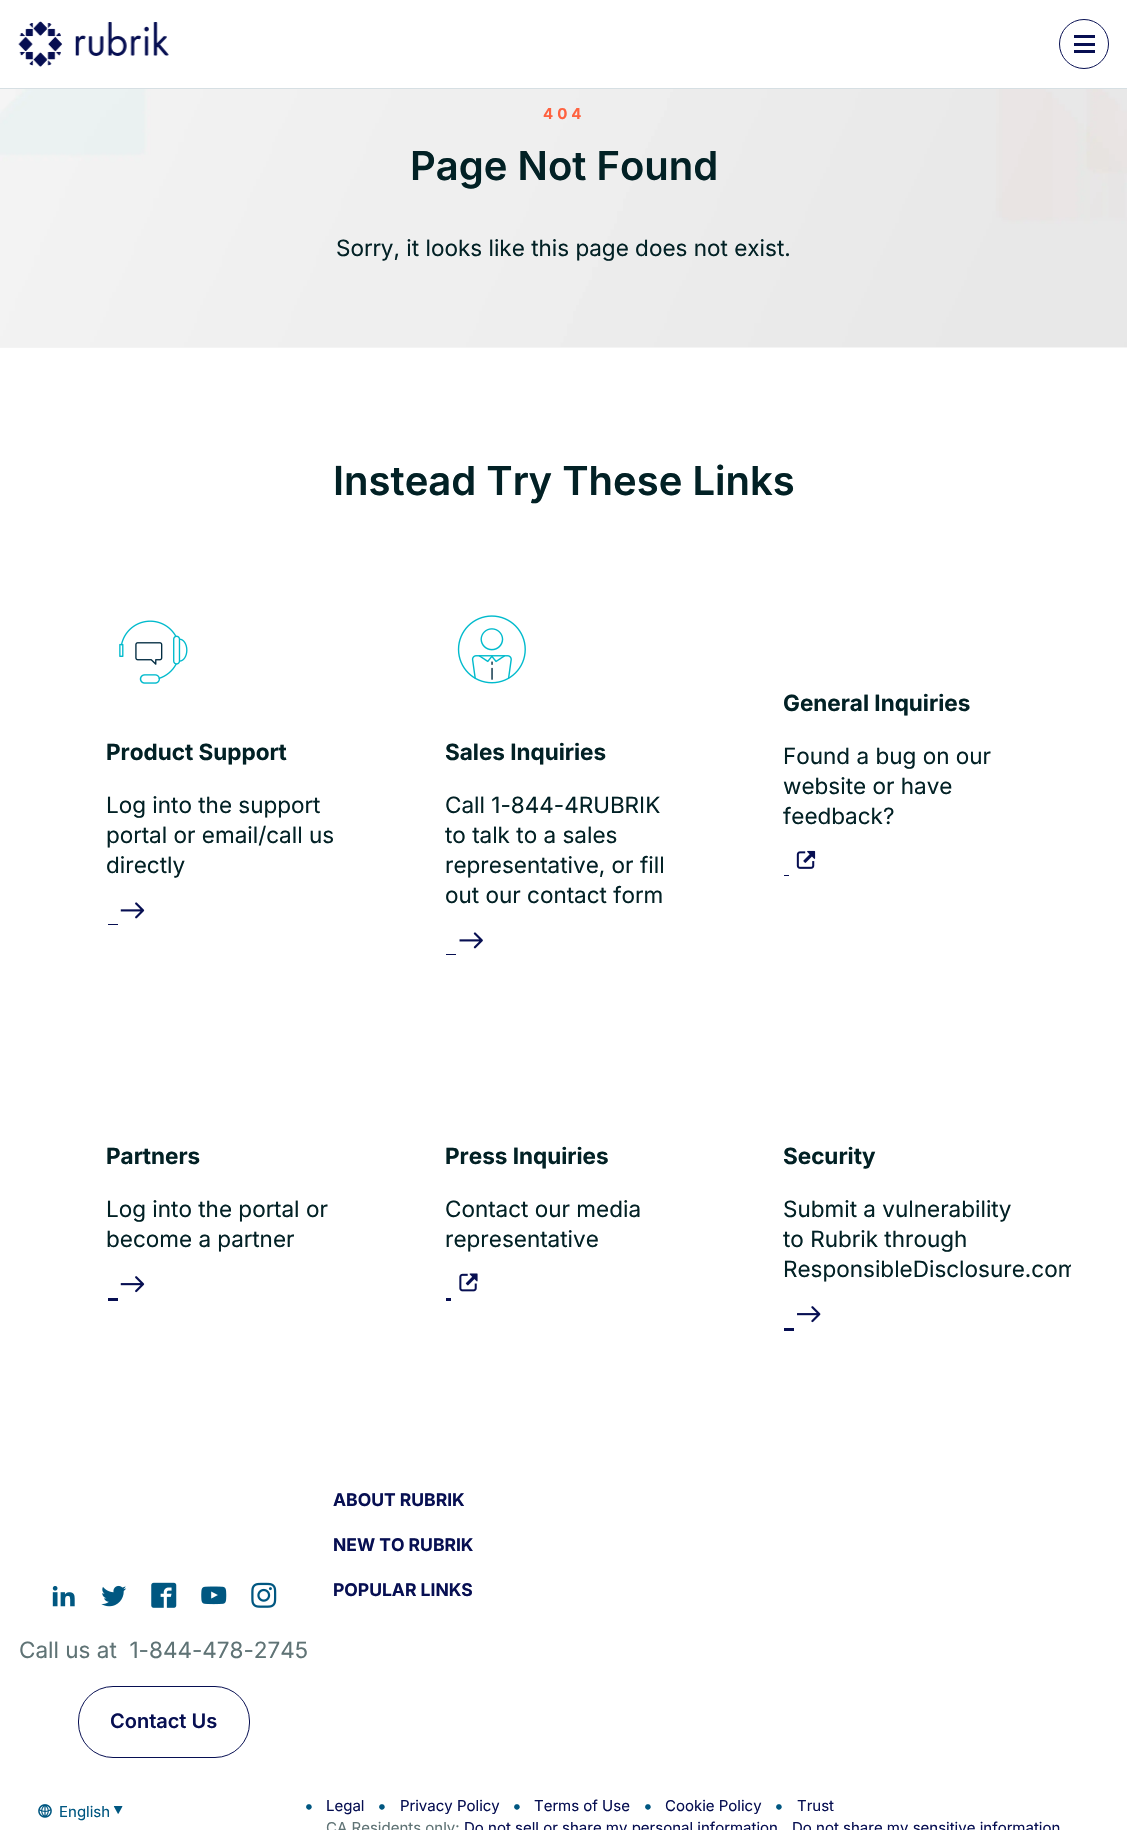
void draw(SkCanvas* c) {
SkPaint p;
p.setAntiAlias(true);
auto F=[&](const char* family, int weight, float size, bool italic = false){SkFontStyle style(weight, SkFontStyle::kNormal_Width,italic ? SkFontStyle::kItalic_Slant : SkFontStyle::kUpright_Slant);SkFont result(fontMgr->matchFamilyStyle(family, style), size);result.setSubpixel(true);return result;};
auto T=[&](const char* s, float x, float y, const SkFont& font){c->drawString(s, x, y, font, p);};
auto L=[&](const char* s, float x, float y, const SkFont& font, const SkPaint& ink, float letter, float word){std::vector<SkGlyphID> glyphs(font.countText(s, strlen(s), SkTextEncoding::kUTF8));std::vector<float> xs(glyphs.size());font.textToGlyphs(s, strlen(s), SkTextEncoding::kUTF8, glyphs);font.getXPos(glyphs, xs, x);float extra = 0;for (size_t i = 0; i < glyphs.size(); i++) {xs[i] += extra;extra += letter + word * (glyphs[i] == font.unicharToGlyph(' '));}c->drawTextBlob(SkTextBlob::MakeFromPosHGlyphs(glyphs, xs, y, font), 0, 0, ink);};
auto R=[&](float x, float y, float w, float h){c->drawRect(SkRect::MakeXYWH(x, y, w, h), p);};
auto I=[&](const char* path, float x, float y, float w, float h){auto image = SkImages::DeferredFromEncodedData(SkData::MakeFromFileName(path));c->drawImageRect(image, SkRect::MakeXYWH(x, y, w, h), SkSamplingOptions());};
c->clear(0xffffffff);
p.setColor(0xffd6dfe3);
R(0,88,1127,1);
I("1.png",18,21,151,46);
p.setStroke(true);
p.setStrokeWidth(1);
p.setColor(0xff070f52);
c->drawCircle(1084,44,24.5,p);
p.setStroke(false);
R(1074,43,21,3);
R(1074,35,21,3);
R(1074,50,21,3);
p.setColor(0xfff4f4f4);
R(0,347,1127,1);
I("2.png",0,89,1127,258);
auto f1 = F("Inter",700,15);
p.setColor(0xffff6240);
L("404",543,119,f1,p,4,0);
auto f2 = F("Inter",600,40);
p.setColor(0xff022125);
T("Page Not Found",410,180,f2);
auto f3 = F("Inter",400,22.5);
T("Sorry, it looks like this page does not exist.",336,256,f3);
T("Instead Try These Links",333,495,f2);
I("3.png",119,620,69,64);
auto f4 = F("Inter",700,22.5);
T("Product Support",106,760,f4);
T("Log into the support",106,813,f3);
T("portal or email/call us",106,843,f3);
T("directly",106,873,f3);
I("4.png",120,902,25,17);
p.setColor(0xff070f52);
R(108,924,10,1);
I("5.png",457,615,69,69);
p.setColor(0xff022125);
T("Sales Inquiries",445,760,f4);
T("Call 1-844-4RUBRIK",445,813,f3);
T("to talk to a sales",445,843,f3);
T("representative, or fill",445,873,f3);
T("out our contact form",445,903,f3);
I("6.png",459,932,24,17);
p.setColor(0xff070f52);
R(446,954,10,1);
p.setColor(0xff022125);
T("General Inquiries",783,711,f4);
T("Found a bug on our",783,764,f3);
T("website or have",783,794,f3);
T("feedback?",783,824,f3);
I("7.png",796,850,20,19);
p.setColor(0xff070f52);
R(784,875,5,1);
p.setColor(0xff022125);
T("Partners",106,1164,f4);
T("Log into the portal or",106,1217,f3);
T("become a partner",106,1247,f3);
I("8.png",120,1276,25,17);
p.setColor(0xff070f52);
R(108,1298,10,3);
p.setColor(0xff022125);
T("Press Inquiries",445,1164,f4);
T("Contact our media",445,1217,f3);
T("representative",445,1247,f3);
I("9.png",459,1273,19,19);
p.setColor(0xff070f52);
R(446,1298,5,3);
p.setColor(0xff022125);
T("Security",783,1164,f4);
T("Submit a vulnerability",783,1217,f3);
T("to Rubrik through",783,1247,f3);
c->save();
c->clipRect(SkRect::MakeXYWH(733,1068,338,275));
T("ResponsibleDisclosure.com",783,1277,f3);
c->restore();
I("10.png",797,1306,24,17);
p.setColor(0xff070f52);
R(784,1328,10,3);
auto f5 = F("Inter",700,17.5);
T("ABOUT RUBRIK",333,1506,f5);
T("NEW TO RUBRIK",333,1551,f5);
T("POPULAR LINKS",333,1596,f5);
I("11.png",52,1586,23,21);
I("12.png",101,1585,26,22);
I("13.png",151,1582,26,26);
I("14.png",201,1586,26,19);
I("15.png",251,1582,26,26);
p.setColor(0xff5f7375);
T("Call us at  1-844-478-2745",19,1658,f3);
p.setStroke(true);
p.setColor(0xff070f52);
c->drawRoundRect(SkRect::MakeXYWH(78.5,1686.5,171,71),34.5,34.5,p);
auto f6 = F("Inter",600,20);
p.setStroke(false);
T("Contact Us",110,1728,f6);
I("16.png",38,1804,14,14);
auto f7 = F("Inter",400,15);
p.setColor(0xff005781);
T("English",59,1817,f7);
I("17.png",113,1806,10,8);
auto f8 = F("Inter",400,17.5);
T("•",304,1812,f8);
p.setColor(0xff070f52);
T("Legal",326,1811,f7);
p.setColor(0xff005781);
T("•",377,1812,f8);
p.setColor(0xff070f52);
T("Privacy Policy",400,1811,f7);
p.setColor(0xff005781);
T("•",512,1812,f8);
p.setColor(0xff070f52);
T("Terms of Use",534,1811,f7);
p.setColor(0xff005781);
T("•",643,1812,f8);
p.setColor(0xff070f52);
T("Cookie Policy",665,1811,f7);
p.setColor(0xff005781);
T("•",774,1812,f8);
p.setColor(0xff070f52);
T("Trust",797,1811,f7);
p.setColor(0xff5f7375);
T("CA Residents only:",326,1833,f7);
p.setColor(0xff070f52);
T("Do not sell or share my personal information",464,1833,f7);
T("Do not share my sensitive information",792,1833,f7);
}
